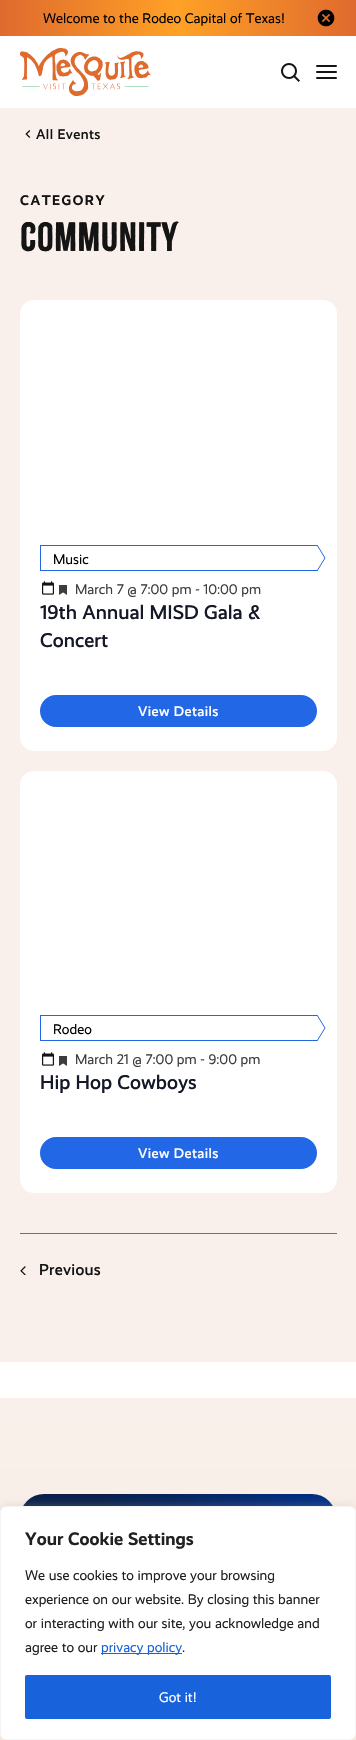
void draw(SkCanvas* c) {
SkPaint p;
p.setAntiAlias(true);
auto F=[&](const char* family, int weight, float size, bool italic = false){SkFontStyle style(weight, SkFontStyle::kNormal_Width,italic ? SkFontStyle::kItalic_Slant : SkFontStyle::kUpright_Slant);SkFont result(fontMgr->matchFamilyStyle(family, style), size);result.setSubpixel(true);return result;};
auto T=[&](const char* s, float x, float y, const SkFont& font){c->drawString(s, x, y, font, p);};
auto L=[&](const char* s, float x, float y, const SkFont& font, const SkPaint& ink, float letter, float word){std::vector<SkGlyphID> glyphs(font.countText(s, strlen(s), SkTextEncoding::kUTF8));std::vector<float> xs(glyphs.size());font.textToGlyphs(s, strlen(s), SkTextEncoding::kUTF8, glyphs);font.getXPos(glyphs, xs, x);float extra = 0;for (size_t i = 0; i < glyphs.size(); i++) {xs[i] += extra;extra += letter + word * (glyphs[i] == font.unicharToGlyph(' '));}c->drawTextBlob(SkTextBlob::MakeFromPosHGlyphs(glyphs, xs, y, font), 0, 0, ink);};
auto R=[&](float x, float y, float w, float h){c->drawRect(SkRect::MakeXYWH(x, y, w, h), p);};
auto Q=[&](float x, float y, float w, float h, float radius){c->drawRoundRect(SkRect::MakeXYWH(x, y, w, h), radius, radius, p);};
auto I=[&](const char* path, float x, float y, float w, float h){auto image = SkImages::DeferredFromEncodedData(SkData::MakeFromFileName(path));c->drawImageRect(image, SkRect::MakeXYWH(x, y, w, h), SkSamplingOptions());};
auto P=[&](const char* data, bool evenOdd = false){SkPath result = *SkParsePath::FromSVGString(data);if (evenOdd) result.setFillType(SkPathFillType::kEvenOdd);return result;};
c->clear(0xffffffff);
{
const SkColor colors[] = {0xffdf6a2e,0xffffa126,0xffdf6a2e};
const float stops[] = {0,.5,1};
const SkPoint ends[] = {{0,18}, {356,18}};
p.setShader(SkGradientShader::MakeLinear(ends, colors, stops, 3, SkTileMode::kClamp));
p.setAlpha(255);
}
R(0,0,356,36);
auto f1 = F("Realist",400,14);
p.setShader(nullptr);
p.setColor(0xff000000);
T("Welcome to the Rodeo Capital of Texas!",43,23,f1);
I("1.png",317,9,18,18);
I("2.png",20,48,131,48);
I("3.png",281,63,19,19);
p.setColor(0xff141414);
Q(316,65,21,2,1);
Q(316,71,21,2,1);
Q(316,77,21,2,1);
p.setColor(0xfffaf0eb);
R(0,108,356,1254);
I("4.png",25,130,6,8);
auto f2 = F("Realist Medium",500,14);
p.setColor(0xff141414);
L("All Events",36,139,f2,p,.4,0);
auto f3 = F("Realist",700,14);
L("CATEGORY",20,205,f3,p,1.5,0);
auto f4 = F("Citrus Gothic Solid",400,36);
L("Community",20,251,f4,p,.25,0);
p.setColor(0xffffffff);
Q(20,300,317,451,14);
p.setColor(0xff2267e5);
R(40,545,277,1);
R(40,570,277,1);
R(40,545,1,26);
p.setColor(0xff000000);
T("Music",53,564,f1);
p.setStroke(true);
p.setStrokeWidth(1);
p.setColor(0xff2267e5);
c->drawPath(P("M317 571l8-13l-8-13"),p);
I("5.png",42,581,12,14);
I("6.png",59,585,8,10);
p.setStroke(false);
p.setColor(0xff3d3d3d);
T("March 7 @ 7:00 pm - 10:00 pm",75,594,f1);
auto f5 = F("Realist Medium",500,20);
p.setColor(0xff141827);
T("19th Annual MISD Gala &",40,619,f5);
T("Concert",40,647,f5);
p.setColor(0xff2267e5);
c->drawRoundRect(SkRect::MakeXYWH(41,696,275,30),15,15,p);
p.setStroke(true);
p.setStrokeWidth(2);
c->drawRoundRect(SkRect::MakeXYWH(41,696,275,30),15,15,p);
p.setStroke(false);
p.setColor(0xffffffff);
L("View Details",138,716,f2,p,.4,0);
Q(20,771,317,422,14);
p.setColor(0xff2267e5);
R(40,1015,277,1);
R(40,1040,277,1);
R(40,1015,1,26);
p.setColor(0xff000000);
T("Rodeo",53,1034,f1);
p.setStroke(true);
p.setStrokeWidth(1);
p.setColor(0xff2267e5);
c->drawPath(P("M317 1041l8-13l-8-13"),p);
I("5.png",42,1052,12,14);
I("6.png",59,1056,8,10);
p.setStroke(false);
p.setColor(0xff3d3d3d);
T("March 21 @ 7:00 pm - 9:00 pm",75,1064,f1);
p.setColor(0xff141827);
T("Hip Hop Cowboys",40,1089,f5);
p.setColor(0xff2267e5);
c->drawRoundRect(SkRect::MakeXYWH(41,1138,275,30),15,15,p);
p.setStroke(true);
p.setStrokeWidth(2);
c->drawRoundRect(SkRect::MakeXYWH(41,1138,275,30),15,15,p);
p.setStroke(false);
p.setColor(0xffffffff);
L("View Details",138,1158,f2,p,.4,0);
p.setColor(0xff707070);
R(20,1233,317,1);
I("7.png",20,1266,6,9);
auto f6 = F("Realist Medium",500,16);
p.setColor(0xff141414);
L("Previous",39,1275,f6,p,.25,0);
{
const SkColor colors[] = {0xfffaf0eb,0xfff3ebd8};
const float stops[] = {0,1};
const SkPoint ends[] = {{178,1398}, {178,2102}};
p.setShader(SkGradientShader::MakeLinear(ends, colors, stops, 2, SkTileMode::kClamp));
p.setAlpha(255);
}
R(0,1398,356,342);
{
const SkColor colors[] = {0xff071f4a,0xff002f87};
const float stops[] = {.26,1};
const SkPoint ends[] = {{20,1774}, {336,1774}};
p.setShader(SkGradientShader::MakeLinear(ends, colors, stops, 2, SkTileMode::kClamp));
p.setAlpha(255);
}
Q(20,1494,316,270,24);
p.setShader(nullptr);
p.setColor(0x4dacabab);
p.setMaskFilter(SkMaskFilter::MakeBlur(kNormal_SkBlurStyle, 5));
c->drawRoundRect(SkRect::MakeXYWH(0,1505,356,234),6,6,p);
p.setMaskFilter(nullptr);
p.setColor(0xffffffff);
c->drawRoundRect(SkRect::MakeXYWH(.5,1506.5,355,233),5.5,5.5,p);
p.setStroke(true);
p.setStrokeWidth(1);
p.setColor(0xfff4f4f4);
c->drawRoundRect(SkRect::MakeXYWH(.5,1506.5,355,233),5.5,5.5,p);
auto f7 = F("Realist",700,18);
p.setStroke(false);
p.setColor(0xff212121);
T("Your Cookie Settings",25,1545,f7);
T("We use cookies to improve your browsing",25,1580,f1);
T("experience on our website. By closing this banner",25,1604,f1);
T("or interacting with our site, you acknowledge and",25,1628,f1);
T("agree to our",25,1652,f1);
p.setColor(0xff1863dc);
R(101,1653,81,1);
T("privacy policy",101,1652,f1);
p.setColor(0xff212121);
T(".",182,1652,f1);
p.setColor(0xff1863dc);
c->drawRoundRect(SkRect::MakeXYWH(26,1676,304,42),1,1,p);
p.setStroke(true);
p.setStrokeWidth(2);
c->drawRoundRect(SkRect::MakeXYWH(26,1676,304,42),1,1,p);
p.setStroke(false);
p.setColor(0xffffffff);
T("Got it!",159,1702,f1);
}
